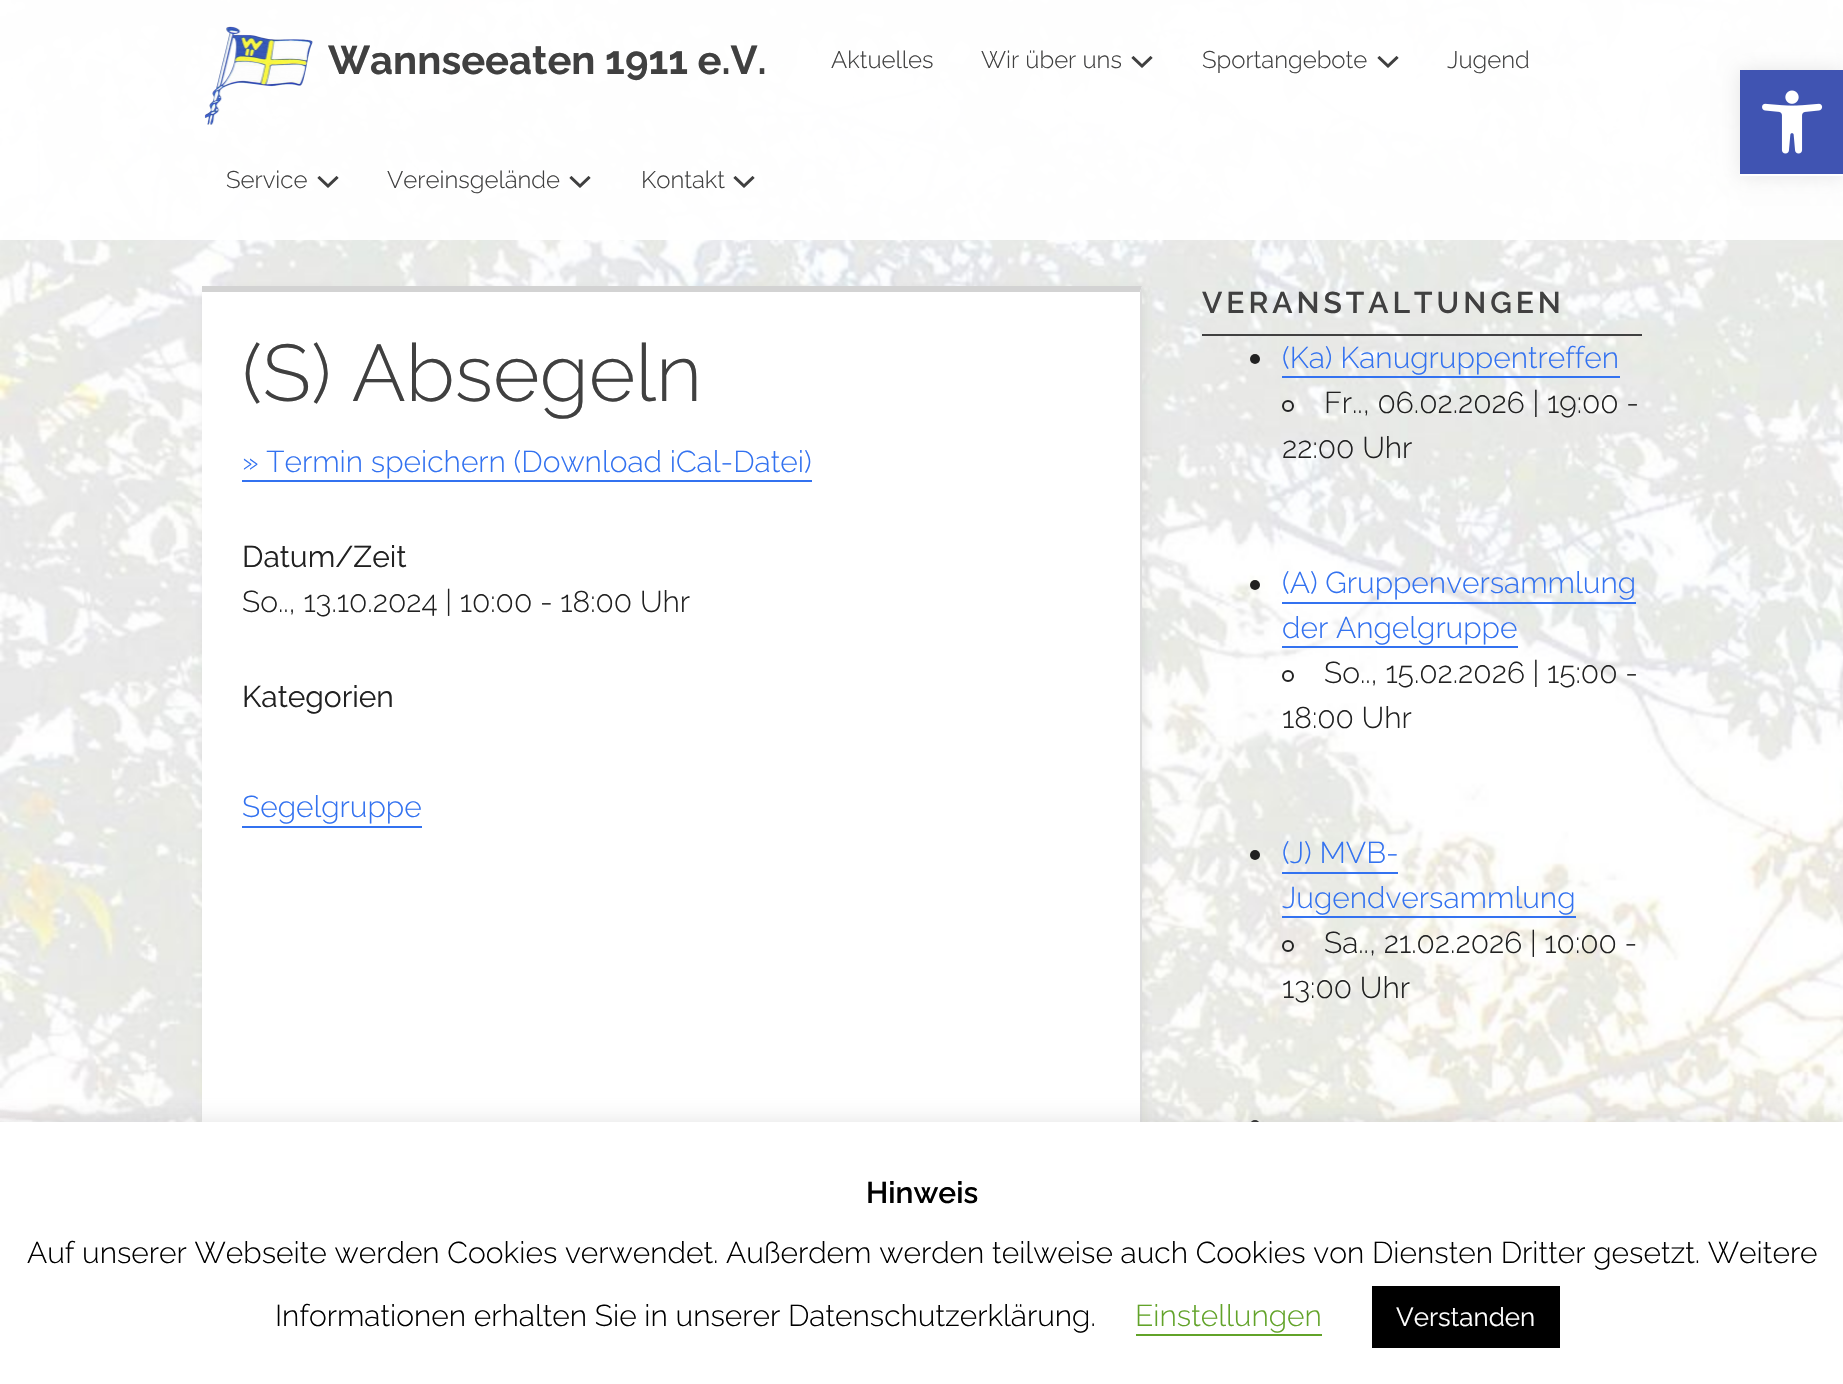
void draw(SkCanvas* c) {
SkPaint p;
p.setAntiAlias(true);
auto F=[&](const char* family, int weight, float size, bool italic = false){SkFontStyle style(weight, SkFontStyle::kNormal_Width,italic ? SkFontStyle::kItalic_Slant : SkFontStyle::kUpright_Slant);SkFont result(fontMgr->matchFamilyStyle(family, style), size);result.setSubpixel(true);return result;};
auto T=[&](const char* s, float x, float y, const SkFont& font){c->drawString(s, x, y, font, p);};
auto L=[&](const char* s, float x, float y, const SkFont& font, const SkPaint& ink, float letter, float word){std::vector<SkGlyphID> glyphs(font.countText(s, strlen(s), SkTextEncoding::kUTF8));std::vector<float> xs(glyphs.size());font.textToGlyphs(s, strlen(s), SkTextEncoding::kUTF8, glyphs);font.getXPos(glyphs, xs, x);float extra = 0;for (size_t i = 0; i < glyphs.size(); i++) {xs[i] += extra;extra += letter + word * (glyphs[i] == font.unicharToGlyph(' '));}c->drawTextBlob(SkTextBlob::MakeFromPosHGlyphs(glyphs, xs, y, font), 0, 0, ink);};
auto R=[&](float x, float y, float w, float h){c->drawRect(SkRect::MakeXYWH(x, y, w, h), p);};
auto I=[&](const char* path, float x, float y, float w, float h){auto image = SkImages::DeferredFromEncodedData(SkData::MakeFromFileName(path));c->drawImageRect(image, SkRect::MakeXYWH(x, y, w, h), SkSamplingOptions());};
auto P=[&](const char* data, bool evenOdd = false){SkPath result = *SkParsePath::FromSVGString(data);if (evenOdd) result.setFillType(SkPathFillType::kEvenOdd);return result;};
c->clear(0xffffffff);
I("1.png",0,0,1843,1122);
p.setColor(0xf2ffffff);
R(0,0,1843,240);
I("2.png",204,26,109,99);
auto f1 = F("Raleway",700,40);
p.setColor(0xff404040);
T("Wannseeaten 1911 e.V.",328,74,f1);
auto f2 = F("Raleway",300,24);
T("Aktuelles",831,68,f2);
T("Wir über uns",981,68,f2);
I("3.png",1131,56,22,12);
T("Sportangebote",1202,68,f2);
I("4.png",1377,56,22,12);
T("Jugend",1447,68,f2);
T("Service",226,188,f2);
I("5.png",317,176,22,12);
T("Vereinsgelände",387,188,f2);
I("6.png",569,176,22,12);
T("Kontakt",641,188,f2);
I("7.png",733,176,22,12);
p.setColor(0x33a0a0a0);
p.setMaskFilter(SkMaskFilter::MakeBlur(kNormal_SkBlurStyle, 4));
c->drawRect(SkRect::MakeXYWH(204,290,940,854),p);
p.setMaskFilter(nullptr);
p.setColor(0xffffffff);
R(202,286,940,836);
p.setColor(0xffd3d3d3);
c->drawPath(P("M202 286h940l-2 6h-938z"),p);
p.setColor(0xffdddddd);
c->drawPath(P("M1142 286v854l-2-2v-846z"),p);
auto f3 = F("Raleway",300,80);
p.setColor(0xff404040);
T("(S) Absegeln",242,401,f3);
auto f4 = F("Raleway",300,30);
p.setColor(0xff3372f0);
T("» Termin speichern (Download iCal-Datei)",242,472,f4);
R(242,480,570,2);
auto f5 = F("Raleway",400,30);
p.setColor(0xff212121);
T("Datum/Zeit",242,567,f5);
T("So.., 13.10.2024 | 10:00 - 18:00 Uhr",242,612,f4);
T("Kategorien",242,707,f5);
p.setColor(0xff3372f0);
T("Segelgruppe",242,817,f4);
R(242,826,180,2);
p.setColor(0xff404040);
R(1202,334,440,2);
auto f6 = F("Raleway",600,30);
L("VERANSTALTUNGEN",1202,313,f6,p,4,0);
p.setColor(0xff212121);
c->drawCircle(1255,359,5,p);
p.setColor(0xff3372f0);
T("(Ka) Kanugruppentreffen",1282,368,f4);
R(1282,376,338,2);
p.setStroke(true);
p.setStrokeWidth(2);
p.setColor(0xff212121);
c->drawCircle(1288,406,5,p);
p.setStroke(false);
T("Fr.., 06.02.2026 | 19:00 -",1324,413,f4);
T("22:00 Uhr",1282,458,f4);
c->drawCircle(1255,585,5,p);
p.setColor(0xff3372f0);
T("(A) Gruppenversammlung",1282,593,f4);
R(1282,602,354,2);
T("der Angelgruppe",1282,638,f4);
R(1282,646,236,2);
p.setStroke(true);
p.setColor(0xff212121);
c->drawCircle(1288,676,5,p);
p.setStroke(false);
T("So.., 15.02.2026 | 15:00 -",1324,683,f4);
T("18:00 Uhr",1282,728,f4);
c->drawCircle(1255,855,5,p);
p.setColor(0xff3372f0);
T("(J) MVB-",1282,863,f4);
R(1282,872,116,2);
T("Jugendversammlung",1282,908,f4);
R(1282,916,294,2);
p.setStroke(true);
p.setColor(0xff212121);
c->drawCircle(1288,946,5,p);
p.setStroke(false);
T("Sa.., 21.02.2026 | 10:00 -",1324,953,f4);
T("13:00 Uhr",1282,998,f4);
c->drawCircle(1255,1125,5,p);
p.setColor(0x1a000000);
p.setMaskFilter(SkMaskFilter::MakeBlur(kNormal_SkBlurStyle, 10));
c->drawRect(SkRect::MakeXYWH(1740,70,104,106),p);
p.setMaskFilter(nullptr);
p.setColor(0xff4054b2);
R(1740,70,103,104);
p.setColor(0xffffffff);
R(1740,174,103,2);
I("8.png",1762,90,61,64);
p.setColor(0x4dacabab);
p.setMaskFilter(SkMaskFilter::MakeBlur(kNormal_SkBlurStyle, 10));
c->drawRect(SkRect::MakeXYWH(0,1120,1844,262),p);
p.setMaskFilter(nullptr);
p.setColor(0xffffffff);
R(0,1122,1843,262);
p.setColor(0xff000000);
T("Hinweis",866,1203,f6);
T("Auf unserer Webseite werden Cookies verwendet. Außerdem werden teilweise auch Cookies von Diensten Dritter gesetzt. Weitere",27,1263,f4);
T("Informationen erhalten Sie in unserer Datenschutzerklärung.",275,1326,f4);
p.setColor(0xff62a329);
T("Einstellungen",1135,1326,f4);
R(1136,1334,186,2);
p.setColor(0xff000000);
R(1372,1286,188,62);
auto f7 = F("Raleway",400,26);
p.setColor(0xffffffff);
T("Verstanden",1396,1326,f7);
}
